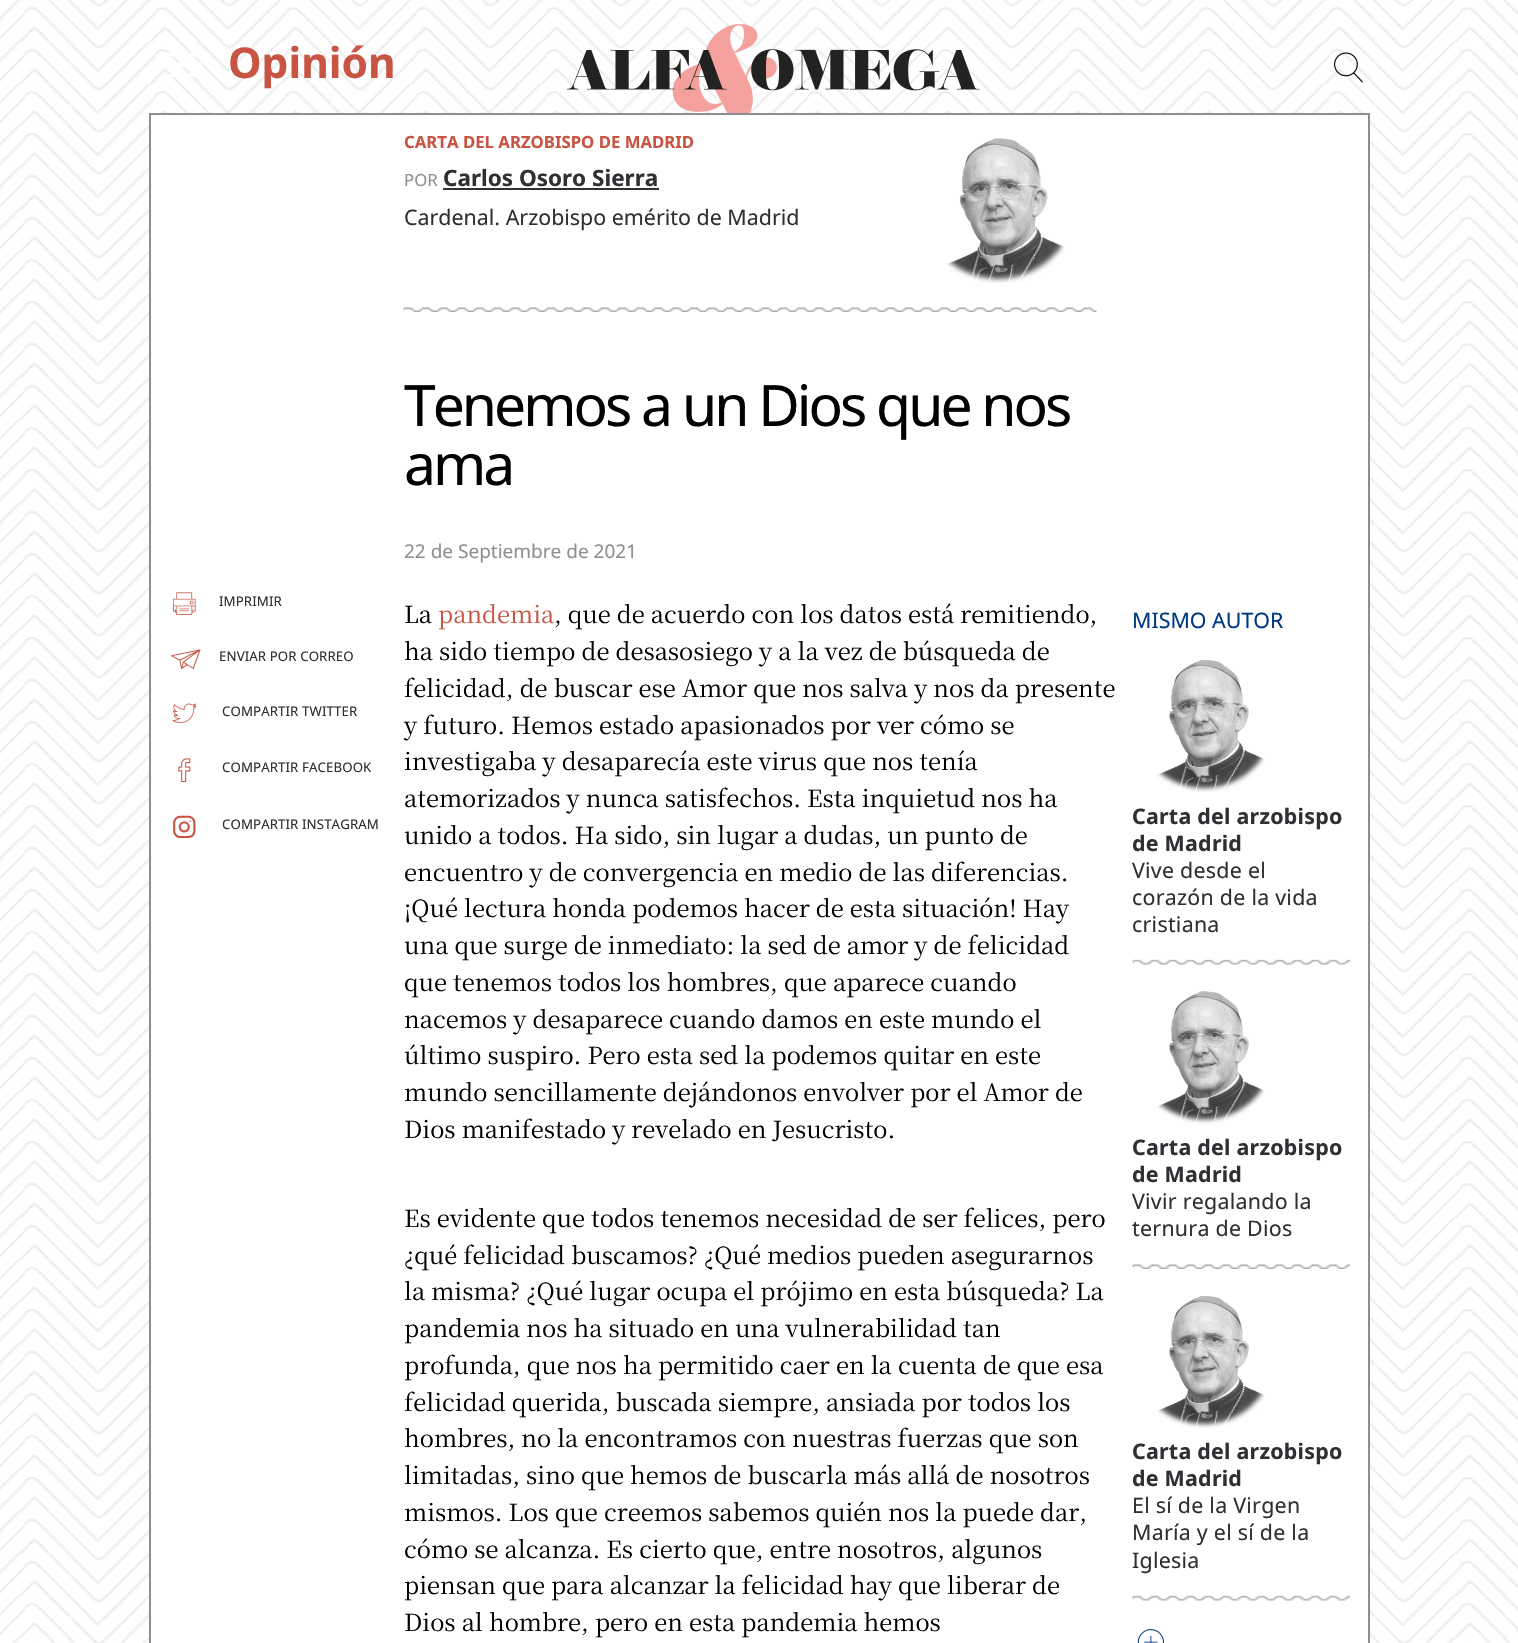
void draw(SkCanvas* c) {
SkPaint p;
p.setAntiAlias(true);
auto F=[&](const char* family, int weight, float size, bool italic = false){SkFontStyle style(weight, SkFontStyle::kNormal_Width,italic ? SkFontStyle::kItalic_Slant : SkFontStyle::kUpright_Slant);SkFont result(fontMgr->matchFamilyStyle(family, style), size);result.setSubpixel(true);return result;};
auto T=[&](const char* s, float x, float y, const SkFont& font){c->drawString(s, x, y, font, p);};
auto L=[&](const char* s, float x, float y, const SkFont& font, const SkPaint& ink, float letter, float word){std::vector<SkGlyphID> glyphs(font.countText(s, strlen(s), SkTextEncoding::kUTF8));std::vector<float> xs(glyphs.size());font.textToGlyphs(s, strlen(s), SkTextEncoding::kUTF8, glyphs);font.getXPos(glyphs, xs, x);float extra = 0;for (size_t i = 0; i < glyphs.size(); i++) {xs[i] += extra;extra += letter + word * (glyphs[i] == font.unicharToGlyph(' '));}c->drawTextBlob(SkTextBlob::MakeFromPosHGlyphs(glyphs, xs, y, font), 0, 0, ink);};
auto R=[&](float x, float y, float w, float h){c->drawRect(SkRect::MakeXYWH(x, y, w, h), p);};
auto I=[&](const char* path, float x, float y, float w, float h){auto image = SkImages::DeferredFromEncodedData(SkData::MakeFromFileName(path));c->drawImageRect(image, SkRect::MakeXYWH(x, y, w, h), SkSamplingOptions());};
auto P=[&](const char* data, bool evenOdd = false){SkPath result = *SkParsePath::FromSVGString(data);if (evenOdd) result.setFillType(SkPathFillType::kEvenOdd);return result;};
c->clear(0xffffffff);
I("1.png",0,0,1518,1643);
p.setStroke(true);
p.setStrokeWidth(3);
p.setStrokeCap(SkPaint::kRound_Cap);
p.setColor(0xffffffff);
c->drawPath(P("M171 54.5h28.5m-28.5 10h28.5m-28.5 10.5h28.5m-33 .5h28.5m-28.5-10.5h28.5m-28.5-10h28.5"),p);
auto f1 = F("Noto Sans",700,42.5);
p.setStroke(false);
p.setColor(0xffc85543);
T("Opinión",228,78,f1);
I("2.png",567,24,413,89);
I("3.png",1334,52,29,31);
p.setColor(0xffffffff);
R(151,115,1217,1528);
p.setColor(0xff8c8e91);
R(149,113,1221,2);
R(1368,113,2,1530);
R(149,113,2,1530);
auto f2 = F("Noto Sans",700,16.75);
p.setColor(0xffc85543);
T("CARTA DEL ARZOBISPO DE MADRID",404,148,f2);
auto f3 = F("Noto Sans",400,16.75);
p.setColor(0xff8e8e94);
T("POR",404,186,f3);
auto f4 = F("Noto Sans",700,22.5);
p.setColor(0xff2f3033);
T("Carlos Osoro Sierra",443,186,f4);
R(443,188,216,2);
auto f5 = F("Noto Sans",400,21.4);
T("Cardenal. Arzobispo emérito de Madrid",404,225,f5);
I("4.png",947,138,118,145);
I("5.png",403,307,694,5);
auto f6 = F("Noto Sans",400,57);
p.setColor(0xff000000);
L("Tenemos a un Dios que nos",404,426,f6,p,-3,0);
L("ama",404,485,f6,p,-3,0);
auto f7 = F("Noto Sans",400,19);
p.setColor(0xff8e8e94);
T("22 de Septiembre de 2021",404,558,f7);
I("6.png",172,592,24,23);
auto f8 = F("Noto Sans",400,13.25);
p.setColor(0xff2f3033);
L("IMPRIMIR",219,606,f8,p,.1,0);
I("7.png",171,649,30,20);
L("ENVIAR POR CORREO",219,661,f8,p,.1,0);
I("8.png",172,703,25,20);
L("COMPARTIR TWITTER",222,716,f8,p,.1,0);
I("9.png",178,758,13,25);
L("COMPARTIR FACEBOOK",222,772,f8,p,.1,0);
I("10.png",173,815,23,24);
L("COMPARTIR INSTAGRAM",222,829,f8,p,.1,0);
auto f9 = F("Noto Serif JP",400,23.75);
p.setColor(0xff000000);
T("La",404,623,f9);
p.setColor(0xffc85543);
T("pandemia",438,623,f9);
p.setColor(0xff000000);
T(", que de acuerdo con los datos está remitiendo,",554,623,f9);
T("ha sido tiempo de desasosiego y a la vez de búsqueda de",404,660,f9);
T("felicidad, de buscar ese Amor que nos salva y nos da presente",404,697,f9);
T("y futuro. Hemos estado apasionados por ver cómo se",404,734,f9);
T("investigaba y desaparecía este virus que nos tenía",404,770,f9);
T("atemorizados y nunca satisfechos. Esta inquietud nos ha",404,807,f9);
T("unido a todos. Ha sido, sin lugar a dudas, un punto de",404,844,f9);
T("encuentro y de convergencia en medio de las diferencias.",404,881,f9);
T("¡Qué lectura honda podemos hacer de esta situación! Hay",404,917,f9);
T("una que surge de inmediato: la sed de amor y de felicidad",404,954,f9);
T("que tenemos todos los hombres, que aparece cuando",404,991,f9);
T("nacemos y desaparece cuando damos en este mundo el",404,1028,f9);
T("último suspiro. Pero esta sed la podemos quitar en este",404,1064,f9);
T("mundo sencillamente dejándonos envolver por el Amor de",404,1101,f9);
T("Dios manifestado y revelado en Jesucristo.",404,1138,f9);
T("Es evidente que todos tenemos necesidad de ser felices, pero",404,1227,f9);
T("¿qué felicidad buscamos? ¿Qué medios pueden asegurarnos",404,1264,f9);
T("la misma? ¿Qué lugar ocupa el prójimo en esta búsqueda? La",404,1300,f9);
T("pandemia nos ha situado en una vulnerabilidad tan",404,1337,f9);
T("profunda, que nos ha permitido caer en la cuenta de que esa",404,1374,f9);
T("felicidad querida, buscada siempre, ansiada por todos los",404,1411,f9);
T("hombres, no la encontramos con nuestras fuerzas que son",404,1447,f9);
T("limitadas, sino que hemos de buscarla más allá de nosotros",404,1484,f9);
T("mismos. Los que creemos sabemos quién nos la puede dar,",404,1521,f9);
T("cómo se alcanza. Es cierto que, entre nosotros, algunos",404,1558,f9);
T("piensan que para alcanzar la felicidad hay que liberar de",404,1594,f9);
T("Dios al hombre, pero en esta pandemia hemos",404,1631,f9);
p.setColor(0xff003882);
T("MISMO AUTOR",1132,628,f5);
I("11.png",1157,660,108,132);
auto f10 = F("Noto Sans",700,21.4);
p.setColor(0xff2f3033);
L("Carta del arzobispo",1132,824,f10,p,.25,0);
L("de Madrid",1132,851,f10,p,.25,0);
L("Vive desde el",1132,878,f5,p,.25,0);
L("corazón de la vida",1132,905,f5,p,.25,0);
L("cristiana",1132,932,f5,p,.25,0);
I("12.png",1132,959,218,6);
I("13.png",1157,991,108,133);
L("Carta del arzobispo",1132,1155,f10,p,.25,0);
L("de Madrid",1132,1182,f10,p,.25,0);
L("Vivir regalando la",1132,1209,f5,p,.25,0);
L("ternura de Dios",1132,1236,f5,p,.25,0);
I("14.png",1132,1264,218,5);
I("11.png",1157,1296,108,132);
L("Carta del arzobispo",1132,1459,f10,p,.25,0);
L("de Madrid",1132,1486,f10,p,.25,0);
L("El sí de la Virgen",1132,1513,f5,p,.25,0);
L("María y el sí de la",1132,1540,f5,p,.25,0);
L("Iglesia",1132,1568,f5,p,.25,0);
I("12.png",1132,1595,218,6);
I("15.png",1137,1629,27,14);
}
